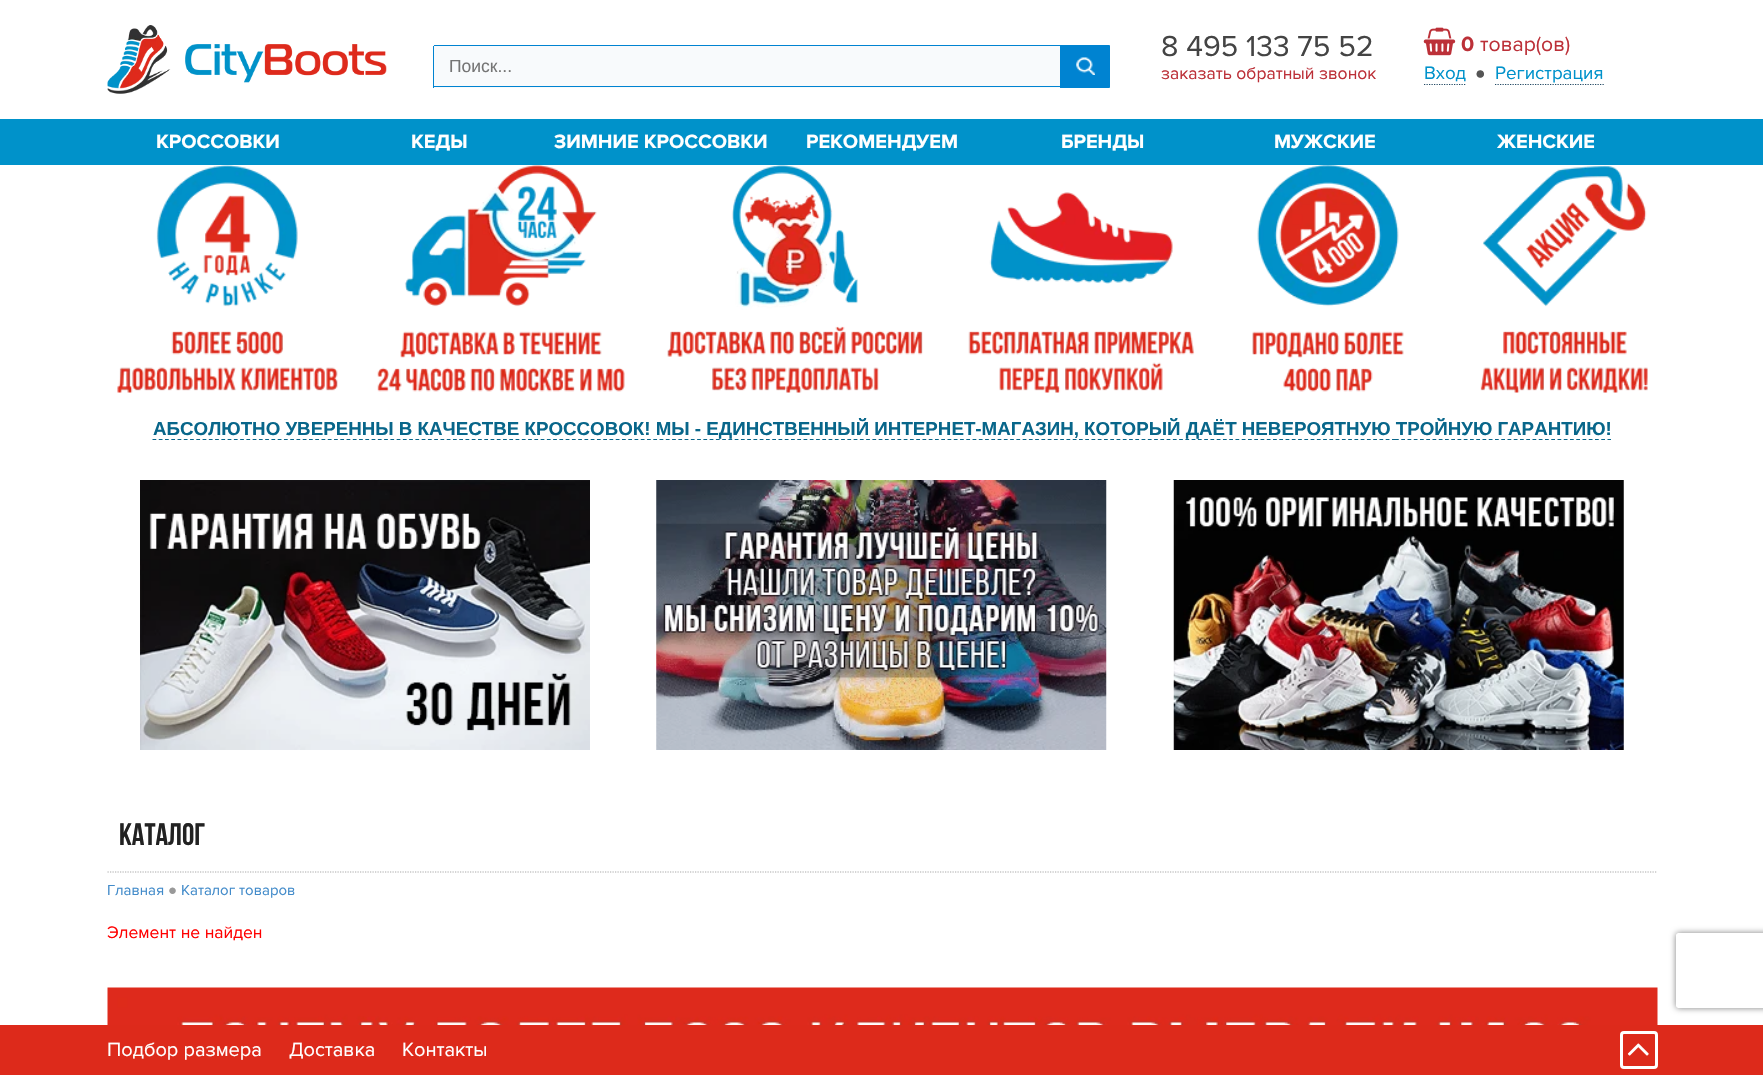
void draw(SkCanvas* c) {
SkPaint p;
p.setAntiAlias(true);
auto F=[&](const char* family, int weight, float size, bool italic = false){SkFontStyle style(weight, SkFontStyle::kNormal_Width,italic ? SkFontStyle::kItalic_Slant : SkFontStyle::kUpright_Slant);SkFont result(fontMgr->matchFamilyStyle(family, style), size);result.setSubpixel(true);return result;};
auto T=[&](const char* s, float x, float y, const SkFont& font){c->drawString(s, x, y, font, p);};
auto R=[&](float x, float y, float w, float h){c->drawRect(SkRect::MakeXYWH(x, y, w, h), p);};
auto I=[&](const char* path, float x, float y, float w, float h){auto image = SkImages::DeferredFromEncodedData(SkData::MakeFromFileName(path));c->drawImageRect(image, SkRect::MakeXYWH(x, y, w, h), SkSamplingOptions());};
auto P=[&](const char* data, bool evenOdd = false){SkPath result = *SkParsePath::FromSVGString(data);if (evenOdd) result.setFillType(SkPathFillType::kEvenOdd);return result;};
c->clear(0xffffffff);
I("1.png",107,25,280,69);
p.setColor(0xfff8fafc);
c->drawPath(P("M434 45h626v43h-626c-.5 0-1-.5-1-1v-41c0-.5 .5-1 1-1z"),p);
p.setColor(0xff0083d1);
R(434,45,626,1);
R(434,86,626,1);
R(433,46,1,42);
auto f1 = F("Liberation Sans",400,17.5);
p.setColor(0xff757575);
T("Поиск...",449,72,f1);
p.setColor(0xff0083d1);
c->drawPath(P("M1060 45h49c.5 0 1 .5 1 1v41c0 .5-.5 1-1 1h-49z"),p);
I("2.png",1076,57,19,18);
auto f2 = F("Proxima Nova",400,30);
p.setColor(0xff444444);
T("8 495 133 75 52",1161,56,f2);
auto f3 = F("Proxima Nova",400,17.5);
p.setColor(0xffbc3038);
T("заказать обратный звонок",1161,79,f3);
I("3.png",1423,27,33,29);
auto f4 = F("Proxima Nova",700,21.25);
T("0",1461,51,f4);
auto f5 = F("Proxima Nova",400,21.25);
T("товар(ов)",1480,51,f5);
auto f6 = F("Proxima Nova",400,18.75);
p.setColor(0xff0092cb);
T("Вход",1424,79,f6);
p.setStroke(true);
p.setStrokeWidth(1.2);
p.setColor(0xff234a63);
p.setPathEffect(SkDashPathEffect::Make({{1.25f,1.25f}}, 0));
c->drawPath(P("M1424 84.5h42"),p);
p.setPathEffect(nullptr);
p.setStroke(false);
p.setColor(0xff555555);
T("●",1475,79,f1);
p.setColor(0xff0092cb);
T("Регистрация",1495,79,f6);
p.setStroke(true);
p.setColor(0xff234a63);
p.setPathEffect(SkDashPathEffect::Make({{1.25f,1.25f}}, 0));
c->drawPath(P("M1495 84.5h109"),p);
p.setPathEffect(nullptr);
p.setStroke(false);
p.setColor(0xff0092ca);
R(0,119,1763,46);
auto f7 = F("Proxima Nova",700,20);
p.setColor(0xffffffff);
T("КРОССОВКИ",156,148,f7);
T("КЕДЫ",411,148,f7);
T("ЗИМНИЕ КРОССОВКИ",554,148,f7);
T("РЕКОМЕНДУЕМ",806,148,f7);
T("БРЕНДЫ",1061,148,f7);
T("МУЖСКИЕ",1274,148,f7);
T("ЖЕНСКИЕ",1497,148,f7);
I("4.png",117,165,1531,228);
p.setStroke(true);
p.setColor(0xff08668a);
p.setPathEffect(SkDashPathEffect::Make({{3.75f,2.51f}}, 0));
c->drawPath(P("M152.5 439.5h1242.5"),p);
p.setPathEffect(nullptr);
p.setPathEffect(SkDashPathEffect::Make({{3.75f,2.5f}}, 0));
c->drawPath(P("M1395 439.5h216"),p);
p.setPathEffect(nullptr);
auto f8 = F("Liberation Sans",700,18.75);
p.setStroke(false);
T("АБСОЛЮТНО УВЕРЕННЫ В КАЧЕСТВЕ КРОССОВОК! МЫ - ЕДИНСТВЕННЫЙ ИНТЕРНЕТ-МАГАЗИН, КОТОРЫЙ ДАЁТ НЕВЕРОЯТНУЮ ТРОЙНУЮ ГАРАНТИЮ!",153,435,f8);
I("5.png",140,480,450,270);
I("6.png",656,480,451,270);
I("7.png",1173,480,451,270);
auto f9 = F("Bebas Neue",700,31);
p.setColor(0xff222222);
T("Каталог",119,845,f9);
p.setStroke(true);
p.setColor(0xffaaaaaa);
p.setPathEffect(SkDashPathEffect::Make({{1.25f,1.25f}}, 0));
c->drawPath(P("M107.5 872h1550"),p);
p.setPathEffect(nullptr);
auto f10 = F("Proxima Nova",400,15);
p.setStroke(false);
p.setColor(0xff428bca);
T("Главная",107,895,f10);
auto f11 = F("Liberation Sans",400,15);
p.setColor(0xff999999);
T("●",168,895,f11);
p.setColor(0xff428bca);
T("Каталог товаров",181,895,f10);
p.setColor(0xffff0000);
T("Элемент не найден",107,938,f3);
I("8.png",107,987,1551,38);
p.setColor(0xffdd2a1b);
R(0,1025,1763,50);
auto f12 = F("Proxima Nova",400,20);
p.setColor(0xffffffff);
T("Подбор размера",107,1056,f12);
T("Доставка",289,1056,f12);
T("Контакты",402,1056,f12);
p.setStroke(true);
p.setStrokeWidth(3);
c->drawRoundRect(SkRect::MakeXYWH(1621.5,1032.5,35,35),2.5,2.5,p);
I("9.png",1627,1043,22,13);
c->save();
c->clipPath(P("M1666 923h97v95h-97zm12.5 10h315c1.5 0 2.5 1 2.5 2.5v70c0 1.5-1 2.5-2.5 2.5h-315c-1.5 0-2.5-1-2.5-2.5v-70c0-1.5 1-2.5 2.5-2.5z",true),true);
p.setStroke(false);
p.setColor(0xff808080);
p.setMaskFilter(SkMaskFilter::MakeBlur(kNormal_SkBlurStyle, 3));
c->drawRoundRect(SkRect::MakeXYWH(1676,933,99,75),2.5,2.5,p);
p.setMaskFilter(nullptr);
c->restore();
}
